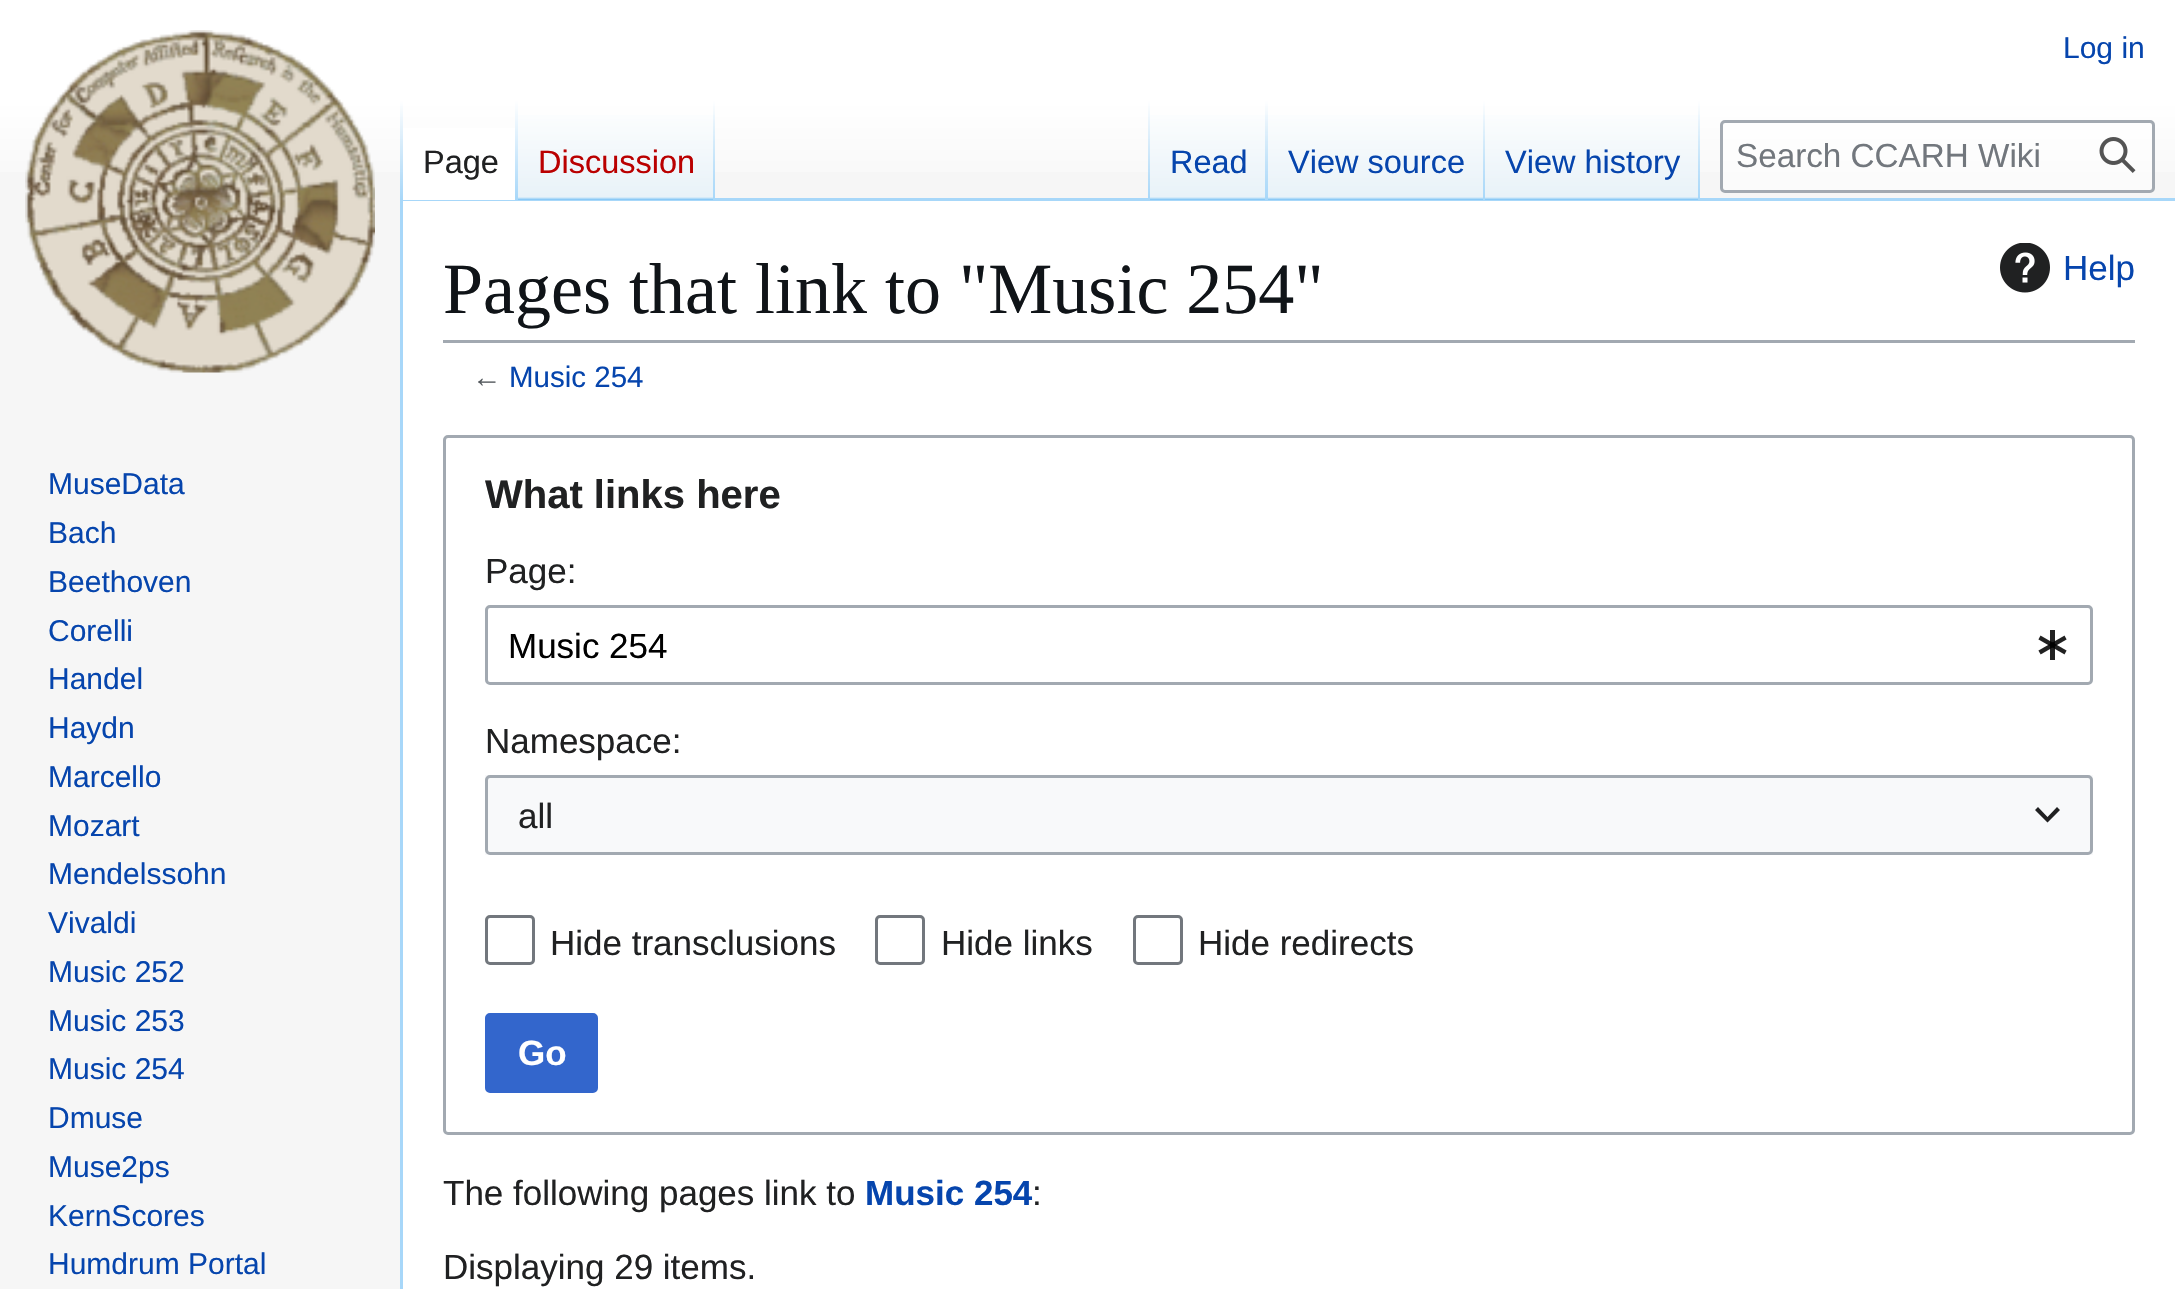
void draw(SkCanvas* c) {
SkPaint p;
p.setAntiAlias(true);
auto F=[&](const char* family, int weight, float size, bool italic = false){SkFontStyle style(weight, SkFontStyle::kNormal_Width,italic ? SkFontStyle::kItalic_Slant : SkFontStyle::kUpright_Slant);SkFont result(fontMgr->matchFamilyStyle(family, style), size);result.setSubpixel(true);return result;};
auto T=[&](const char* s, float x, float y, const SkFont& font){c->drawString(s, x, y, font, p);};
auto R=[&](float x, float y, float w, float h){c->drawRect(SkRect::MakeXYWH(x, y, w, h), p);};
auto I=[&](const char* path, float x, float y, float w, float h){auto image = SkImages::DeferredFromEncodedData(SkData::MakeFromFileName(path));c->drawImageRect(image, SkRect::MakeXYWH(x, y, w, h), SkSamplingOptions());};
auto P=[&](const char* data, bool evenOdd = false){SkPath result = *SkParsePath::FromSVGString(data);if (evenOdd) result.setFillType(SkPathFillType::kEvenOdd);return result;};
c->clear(0xfff6f6f6);
{
const SkColor colors[] = {0xffffffff,0xfff6f6f6};
const float stops[] = {.5,1};
const SkPoint ends[] = {{1088,0}, {1088,200}};
p.setShader(SkGradientShader::MakeLinear(ends, colors, stops, 2, SkTileMode::kClamp));
p.setAlpha(255);
}
R(0,0,2175,172);
auto f1 = F("Liberation Sans",400,30);
p.setShader(nullptr);
p.setColor(0xff0645ad);
T("Log in",2063,58,f1);
p.setColor(0xffa7d7f9);
R(400,198,1775,3);
R(400,198,3,1091);
{
const SkColor colors[] = {0x00a7d7f9,0xffa7d7f9};
const float stops[] = {0,1};
const SkPoint ends[] = {{401,100}, {401,200}};
p.setShader(SkGradientShader::MakeLinear(ends, colors, stops, 2, SkTileMode::kClamp));
p.setAlpha(255);
}
R(400,100,3,100);
p.setShader(nullptr);
p.setColor(0xffffffff);
R(403,128,112,72);
{
const SkColor colors[] = {0xffffffff,0xffa7d7f9};
const float stops[] = {0,1};
const SkPoint ends[] = {{516,100}, {516,200}};
p.setShader(SkGradientShader::MakeLinear(ends, colors, stops, 2, SkTileMode::kClamp));
p.setAlpha(255);
}
R(515,100,3,100);
auto f2 = F("Liberation Sans",400,32.5);
p.setShader(nullptr);
p.setColor(0xff202122);
T("Page",423,173,f2);
{
const SkColor colors[] = {0xff77c1f6,0xffe8f2f8,0xffffffff};
const float stops[] = {0,.03,1};
const SkPoint ends[] = {{616,200}, {616,100}};
p.setShader(SkGradientShader::MakeLinear(ends, colors, stops, 3, SkTileMode::kClamp));
p.setAlpha(255);
}
R(518,115,197,85);
{
const SkColor colors[] = {0x00a7d7f9,0xffa7d7f9};
const float stops[] = {0,1};
const SkPoint ends[] = {{714,100}, {714,200}};
p.setShader(SkGradientShader::MakeLinear(ends, colors, stops, 2, SkTileMode::kClamp));
p.setAlpha(255);
}
R(713,100,2,100);
p.setShader(nullptr);
p.setColor(0xffba0000);
T("Discussion",538,173,f2);
{
const SkColor colors[] = {0x00a7d7f9,0xffa7d7f9};
const float stops[] = {0,1};
const SkPoint ends[] = {{1149,100}, {1149,200}};
p.setShader(SkGradientShader::MakeLinear(ends, colors, stops, 2, SkTileMode::kClamp));
p.setAlpha(255);
}
R(1148,100,2,100);
{
const SkColor colors[] = {0xff77c1f6,0xffe8f2f8,0xffffffff};
const float stops[] = {0,.03,1};
const SkPoint ends[] = {{1209,200}, {1209,100}};
p.setShader(SkGradientShader::MakeLinear(ends, colors, stops, 3, SkTileMode::kClamp));
p.setAlpha(255);
}
R(1150,115,118,85);
{
const SkColor colors[] = {0x00a7d7f9,0xffa7d7f9};
const float stops[] = {0,1};
const SkPoint ends[] = {{1266,100}, {1266,200}};
p.setShader(SkGradientShader::MakeLinear(ends, colors, stops, 2, SkTileMode::kClamp));
p.setAlpha(255);
}
R(1265,100,3,100);
p.setShader(nullptr);
p.setColor(0xff0645ad);
T("Read",1170,173,f2);
{
const SkColor colors[] = {0xff77c1f6,0xffe8f2f8,0xffffffff};
const float stops[] = {0,.03,1};
const SkPoint ends[] = {{1376,200}, {1376,100}};
p.setShader(SkGradientShader::MakeLinear(ends, colors, stops, 3, SkTileMode::kClamp));
p.setAlpha(255);
}
R(1268,115,217,85);
{
const SkColor colors[] = {0x00a7d7f9,0xffa7d7f9};
const float stops[] = {0,1};
const SkPoint ends[] = {{1484,100}, {1484,200}};
p.setShader(SkGradientShader::MakeLinear(ends, colors, stops, 2, SkTileMode::kClamp));
p.setAlpha(255);
}
R(1483,100,2,100);
p.setShader(nullptr);
p.setColor(0xff0645ad);
T("View source",1288,173,f2);
{
const SkColor colors[] = {0xff77c1f6,0xffe8f2f8,0xffffffff};
const float stops[] = {0,.03,1};
const SkPoint ends[] = {{1593,200}, {1593,100}};
p.setShader(SkGradientShader::MakeLinear(ends, colors, stops, 3, SkTileMode::kClamp));
p.setAlpha(255);
}
R(1485,115,215,85);
{
const SkColor colors[] = {0x00a7d7f9,0xffa7d7f9};
const float stops[] = {0,1};
const SkPoint ends[] = {{1699,100}, {1699,200}};
p.setShader(SkGradientShader::MakeLinear(ends, colors, stops, 2, SkTileMode::kClamp));
p.setAlpha(255);
}
R(1698,100,2,100);
p.setShader(nullptr);
p.setColor(0xff0645ad);
T("View history",1505,173,f2);
p.setColor(0x80ffffff);
c->drawRoundRect(SkRect::MakeXYWH(1721.5,121.5,432,70),3.5,3.5,p);
p.setStroke(true);
p.setStrokeWidth(3);
p.setColor(0xffa2a9b1);
c->drawRoundRect(SkRect::MakeXYWH(1721.5,121.5,432,70),3.5,3.5,p);
auto f3 = F("Liberation Sans",400,33.25);
p.setStroke(false);
p.setColor(0xff72777d);
T("Search CCARH Wiki",1736,167,f3);
I("1.png",2099,137,37,36);
I("2.png",25,30,350,343);
p.setColor(0xff0645ad);
T("MuseData",48,494,f1);
T("Bach",48,543,f1);
T("Beethoven",48,592,f1);
T("Corelli",48,641,f1);
T("Handel",48,689,f1);
T("Haydn",48,738,f1);
T("Marcello",48,787,f1);
T("Mozart",48,836,f1);
T("Mendelssohn",48,884,f1);
T("Vivaldi",48,933,f1);
T("Music 252",48,982,f1);
T("Music 253",48,1031,f1);
T("Music 254",48,1079,f1);
T("Dmuse",48,1128,f1);
T("Muse2ps",48,1177,f1);
T("KernScores",48,1226,f1);
T("Humdrum Portal",48,1274,f1);
p.setColor(0xffffffff);
R(403,201,1772,1088);
p.setColor(0xffa2a9b1);
R(443,340,1692,3);
auto f4 = F("Liberation Serif",400,72);
p.setColor(0xff101418);
T("Pages that link to \"Music 254\"",443,313,f4);
I("3.png",2000,243,50,50);
auto f5 = F("Liberation Sans",400,35);
p.setColor(0xff0645ad);
T("Help",2063,280,f5);
auto f6 = F("Liberation Sans",400,29.5);
p.setColor(0xff54595d);
T("←",472,387,f6);
p.setColor(0xff0645ad);
T("Music 254",509,387,f6);
p.setStroke(true);
p.setColor(0xffa2a9b1);
c->drawRoundRect(SkRect::MakeXYWH(444.5,436.5,1689,697),3.5,3.5,p);
auto f7 = F("Liberation Sans",700,40);
p.setStroke(false);
p.setColor(0xff202122);
T("What links here",485,508,f7);
T("Page:",485,583,f5);
p.setStroke(true);
p.setColor(0xffa2a9b1);
c->drawRoundRect(SkRect::MakeXYWH(486.5,606.5,1605,77),3.5,3.5,p);
p.setStroke(false);
p.setColor(0xff000000);
T("Music 254",508,658,f5);
I("4.png",2038,630,29,30);
p.setColor(0xff202122);
T("Namespace:",485,753,f5);
p.setColor(0xfff8f9fa);
R(485,775,1608,80);
p.setStroke(true);
p.setColor(0xffa2a9b1);
c->drawRoundRect(SkRect::MakeXYWH(486.5,776.5,1605,77),3.5,3.5,p);
p.setStroke(false);
p.setColor(0xff202122);
T("all",518,828,f5);
p.setColor(0xff202021);
c->drawPath(P("M2057 807l-9.5 10l-9.5-10l-3 3l12.5 12.5l12.5-12.5z"),p);
p.setStroke(true);
p.setColor(0xff72777d);
c->drawRoundRect(SkRect::MakeXYWH(486.5,916.5,47,47),3.5,3.5,p);
p.setStroke(false);
p.setColor(0xff202122);
T("Hide transclusions",550,955,f5);
p.setStroke(true);
p.setColor(0xff72777d);
c->drawRoundRect(SkRect::MakeXYWH(876.5,916.5,47,47),3.5,3.5,p);
p.setStroke(false);
p.setColor(0xff202122);
T("Hide links",941,955,f5);
p.setStroke(true);
p.setColor(0xff72777d);
c->drawRoundRect(SkRect::MakeXYWH(1134.5,916.5,47,47),3.5,3.5,p);
p.setStroke(false);
p.setColor(0xff202122);
T("Hide redirects",1198,955,f5);
p.setColor(0xff3366cc);
c->drawRoundRect(SkRect::MakeXYWH(486.5,1014.5,110,77),3.5,3.5,p);
p.setStroke(true);
c->drawRoundRect(SkRect::MakeXYWH(486.5,1014.5,110,77),3.5,3.5,p);
auto f8 = F("Liberation Sans",700,35);
p.setStroke(false);
p.setColor(0xffffffff);
T("Go",518,1065,f8);
p.setColor(0xff202122);
T("The following pages link to",443,1205,f5);
p.setColor(0xff0645ad);
T("Music 254",865,1205,f8);
p.setColor(0xff202122);
T(":",1032,1205,f5);
T("Displaying 29 items.",443,1279,f5);
}
